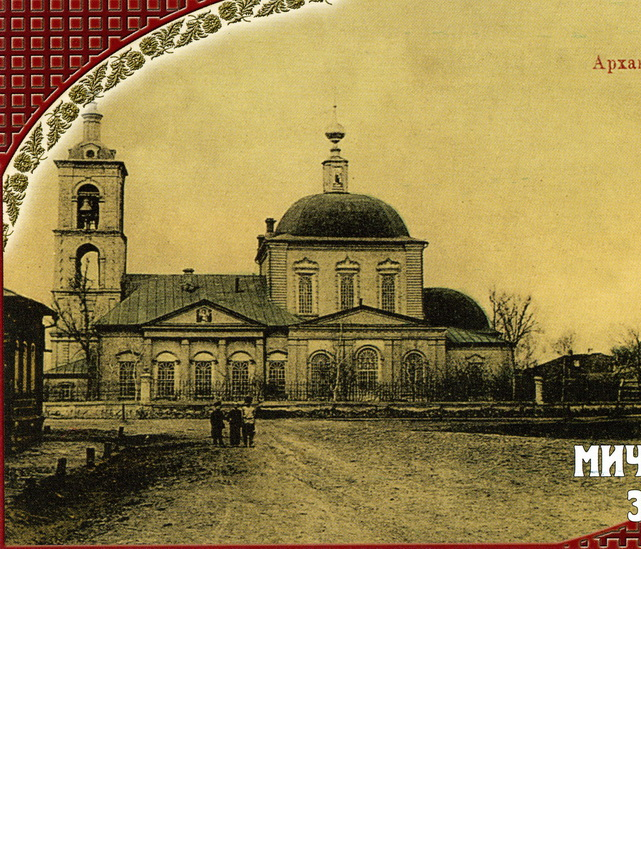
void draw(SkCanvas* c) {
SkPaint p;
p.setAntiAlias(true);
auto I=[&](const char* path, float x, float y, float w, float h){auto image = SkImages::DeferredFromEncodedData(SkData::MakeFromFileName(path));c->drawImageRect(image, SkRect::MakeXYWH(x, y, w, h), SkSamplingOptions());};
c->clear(0xffffffff);
I("1.png",0,0,641,549);
}
